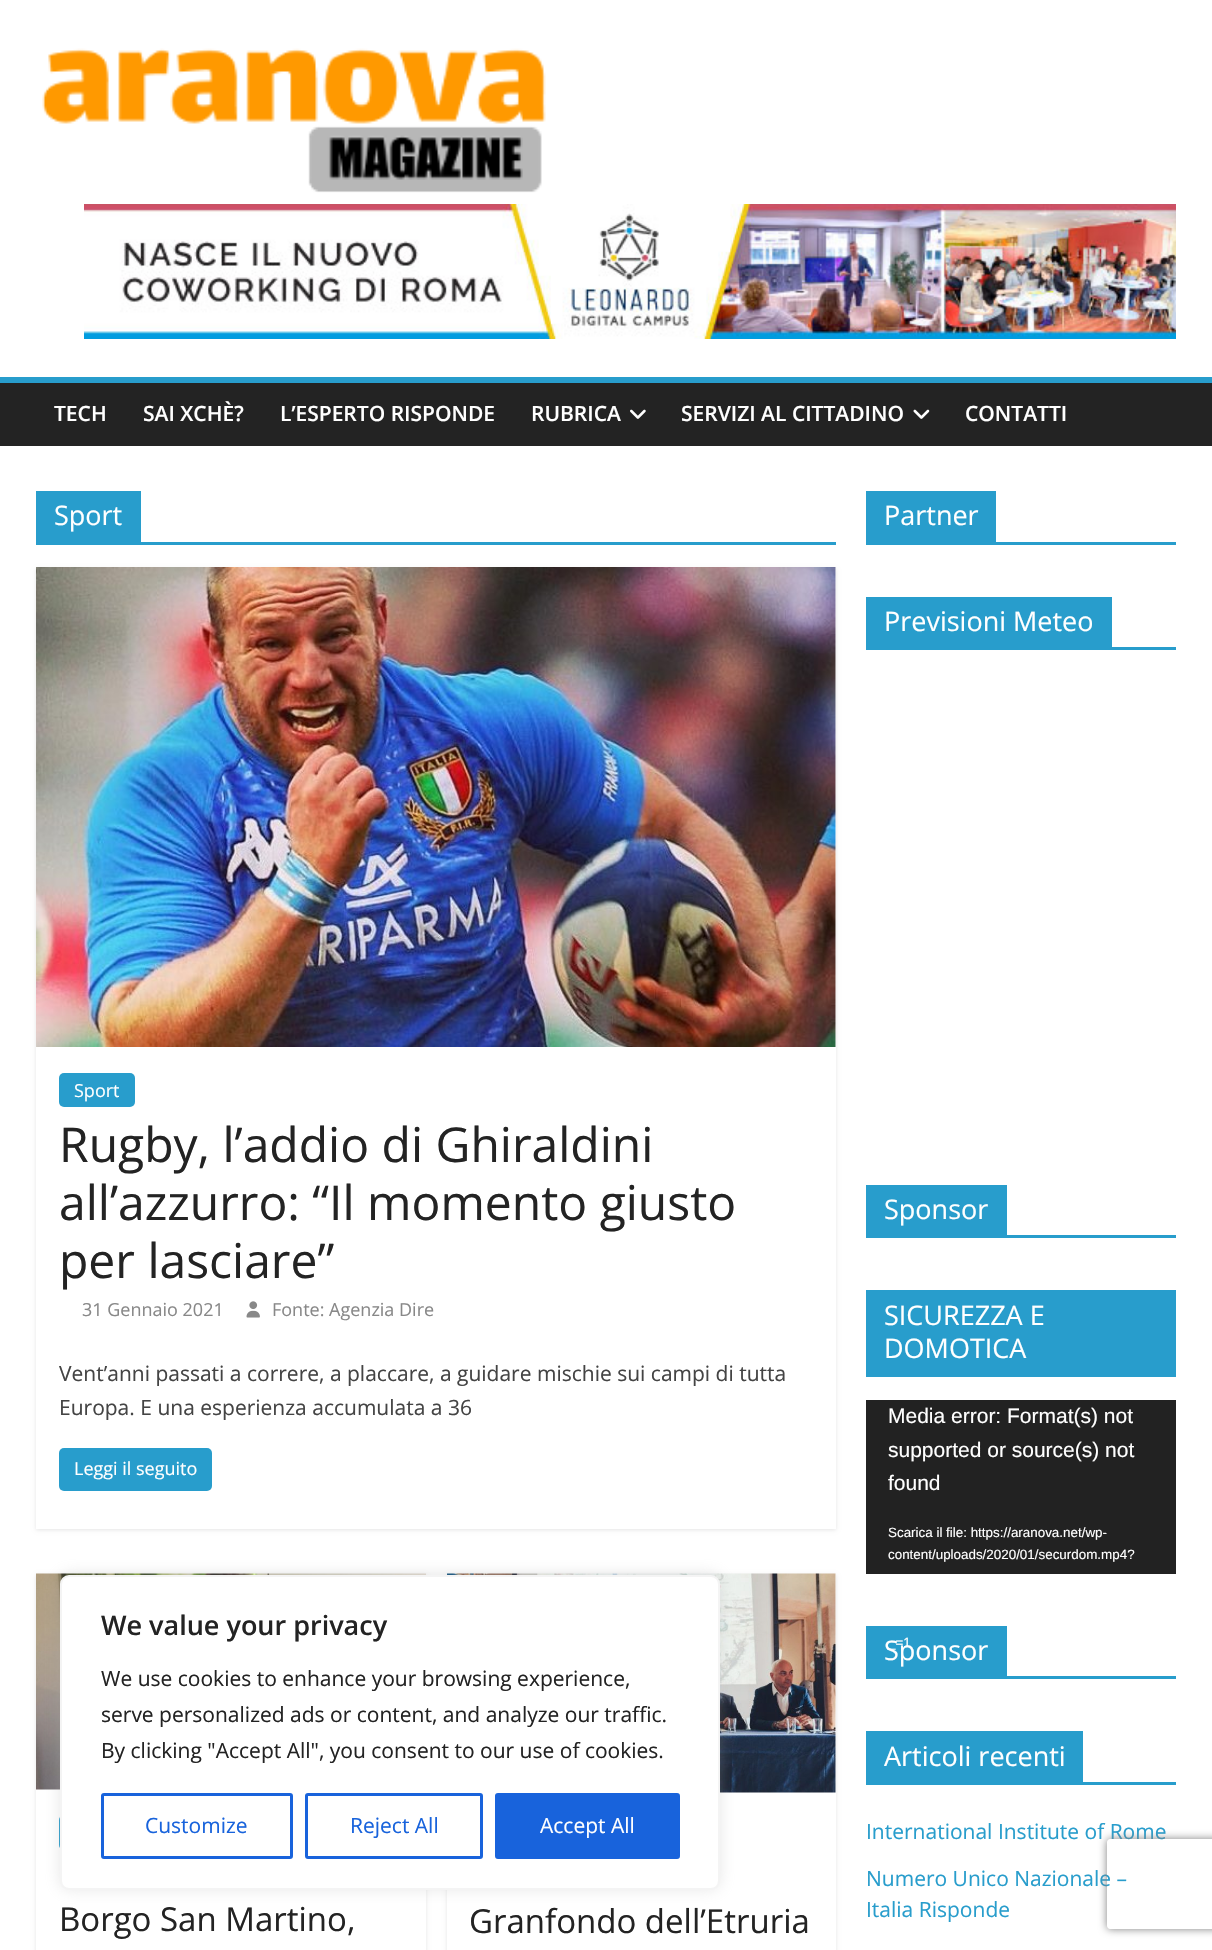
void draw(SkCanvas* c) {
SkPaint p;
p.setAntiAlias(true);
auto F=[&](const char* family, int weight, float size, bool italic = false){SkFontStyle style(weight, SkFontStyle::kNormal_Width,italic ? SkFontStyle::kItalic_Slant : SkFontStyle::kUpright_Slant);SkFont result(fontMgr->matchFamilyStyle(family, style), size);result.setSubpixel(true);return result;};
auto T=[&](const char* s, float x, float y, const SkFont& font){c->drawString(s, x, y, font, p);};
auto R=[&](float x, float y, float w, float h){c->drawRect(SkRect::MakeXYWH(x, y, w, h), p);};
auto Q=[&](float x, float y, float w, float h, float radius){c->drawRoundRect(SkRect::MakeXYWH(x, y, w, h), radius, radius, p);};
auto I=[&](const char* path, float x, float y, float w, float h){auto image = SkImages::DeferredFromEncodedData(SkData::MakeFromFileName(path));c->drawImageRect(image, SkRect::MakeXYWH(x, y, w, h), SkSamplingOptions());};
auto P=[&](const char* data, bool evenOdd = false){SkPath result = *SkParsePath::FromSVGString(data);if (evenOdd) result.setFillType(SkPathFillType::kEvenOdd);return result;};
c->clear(0xffffffff);
I("1.png",42,48,504,145);
I("2.png",84,204,1092,135);
p.setColor(0xff232323);
R(0,383,1212,63);
p.setColor(0xff289dcc);
R(0,377,1212,6);
auto f1 = F("Open Sans",600,21);
p.setColor(0xffffffff);
T("TECH",54,421,f1);
T("SAI XCHÈ?",143,421,f1);
T("L’ESPERTO RISPONDE",280,421,f1);
T("RUBRICA",531,421,f1);
I("3.png",630,409,16,10);
T("SERVIZI AL CITTADINO",681,421,f1);
I("4.png",913,409,17,10);
T("CONTATTI",965,421,f1);
p.setColor(0xff289dcc);
R(36,542,800,3);
R(36,491,105,51);
auto f2 = F("Open Sans",400,27);
p.setColor(0xffffffff);
T("Sport",54,525,f2);
c->save();
c->clipPath(P("M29 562h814v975h-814zm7 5h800v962h-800z",true),true);
p.setColor(0x1a000000);
p.setMaskFilter(SkMaskFilter::MakeBlur(kNormal_SkBlurStyle, 2));
c->drawRect(SkRect::MakeXYWH(36,569,800,961),p);
p.setMaskFilter(nullptr);
c->restore();
I("5.png",36,567,800,480);
p.setColor(0xff289dcc);
Q(59,1073,76,34,5);
auto f3 = F("Open Sans",400,18);
p.setColor(0xffffffff);
T("Sport",74,1097,f3);
auto f4 = F("Open Sans",400,48);
p.setColor(0xff232323);
T("Rugby, l’addio di Ghiraldini",59,1162,f4);
T("all’azzurro: “Il momento giusto",59,1220,f4);
T("per lasciare”",59,1278,f4);
p.setColor(0xff888888);
T("31 Gennaio 2021",82,1316,f3);
I("6.png",246,1301,14,17);
T("Fonte: Agenzia Dire",272,1316,f3);
auto f5 = F("Open Sans",400,21);
p.setColor(0xff444444);
T("Vent’anni passati a correre, a placcare, a guidare mischie sui campi di tutta",59,1381,f5);
T("Europa. E una esperienza accumulata a 36",59,1415,f5);
p.setColor(0xff289dcc);
Q(59,1448,153,43,5);
p.setColor(0xffffffff);
T("Leggi il seguito",74,1475,f3);
c->save();
c->clipPath(P("M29 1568h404v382h-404zm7 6h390v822h-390z",true),true);
p.setColor(0x1a000000);
p.setMaskFilter(SkMaskFilter::MakeBlur(kNormal_SkBlurStyle, 2));
c->drawRect(SkRect::MakeXYWH(36,1575,390,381),p);
p.setMaskFilter(nullptr);
c->restore();
I("7.png",36,1573,390,217);
p.setColor(0xff289dcc);
Q(59,1815,76,35,5);
auto f6 = F("Open Sans",400,33);
p.setColor(0xff232323);
T("Borgo San Martino,",59,1931,f6);
c->save();
c->clipPath(P("M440 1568h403v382h-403zm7 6h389v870h-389z",true),true);
p.setColor(0x1a000000);
p.setMaskFilter(SkMaskFilter::MakeBlur(kNormal_SkBlurStyle, 2));
c->drawRect(SkRect::MakeXYWH(447,1575,389,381),p);
p.setMaskFilter(nullptr);
c->restore();
I("8.png",447,1573,389,220);
p.setColor(0xff232323);
T("Granfondo dell’Etruria",469,1933,f6);
p.setColor(0xff289dcc);
R(866,542,310,3);
R(866,491,130,51);
p.setColor(0xffffffff);
T("Partner",884,525,f2);
p.setColor(0xff289dcc);
R(866,647,310,3);
R(866,597,246,50);
p.setColor(0xffffffff);
T("Previsioni Meteo",884,631,f2);
p.setColor(0xff289dcc);
R(866,1235,310,3);
R(866,1185,141,50);
p.setColor(0xffffffff);
T("Sponsor",884,1219,f2);
p.setColor(0xff289dcc);
R(866,1290,310,87);
p.setColor(0xffffffff);
T("SICUREZZA E",884,1325,f2);
T("DOMOTICA",884,1358,f2);
p.setColor(0xff222222);
R(866,1400,310,174);
auto f7 = F("Liberation Sans",400,21);
p.setColor(0xffffffff);
T("Media error: Format(s) not",888,1423,f7);
T("supported or source(s) not",888,1457,f7);
T("found",888,1490,f7);
auto f8 = F("Liberation Sans",400,13.4);
T("Scarica il file: https://aranova.net/wp-",888,1537,f8);
T("content/uploads/2020/01/securdom.mp4?",888,1559,f8);
p.setColor(0xff289dcc);
R(866,1626,141,50);
p.setColor(0xffffffff);
T("Sponsor",884,1660,f2);
T("_=1",888,1647,f8);
p.setColor(0xff289dcc);
R(866,1676,310,3);
R(866,1782,310,3);
R(866,1731,217,51);
p.setColor(0xffffffff);
T("Articoli recenti",884,1766,f2);
p.setColor(0xff289dcc);
T("International Institute of Rome",866,1839,f5);
T("Numero Unico Nazionale –",866,1886,f5);
T("Italia Risponde",866,1917,f5);
p.setColor(0x4dacabab);
p.setMaskFilter(SkMaskFilter::MakeBlur(kNormal_SkBlurStyle, 7.5));
c->drawRoundRect(SkRect::MakeXYWH(60,1574,660,315),9,9,p);
p.setMaskFilter(nullptr);
p.setColor(0xffffffff);
c->drawRoundRect(SkRect::MakeXYWH(61,1576,658,313),8,8,p);
p.setStroke(true);
p.setStrokeWidth(2);
p.setColor(0xfff4f4f4);
c->drawRoundRect(SkRect::MakeXYWH(61,1576,658,313),8,8,p);
auto f9 = F("Open Sans",600,27);
p.setStroke(false);
p.setColor(0xff232323);
T("We value your privacy",101,1635,f9);
T("We use cookies to enhance your browsing experience,",101,1686,f5);
T("serve personalized ads or content, and analyze our traffic.",101,1722,f5);
T("By clicking \"Accept All\", you consent to our use of cookies.",101,1758,f5);
p.setStroke(true);
p.setStrokeWidth(3);
p.setColor(0xff1863dc);
c->drawRoundRect(SkRect::MakeXYWH(102.5,1794.5,189,63),1.5,1.5,p);
p.setStroke(false);
T("Customize",145,1833,f5);
p.setStroke(true);
c->drawRoundRect(SkRect::MakeXYWH(306.5,1794.5,175,63),1.5,1.5,p);
p.setStroke(false);
T("Reject All",350,1833,f5);
c->drawRoundRect(SkRect::MakeXYWH(496.5,1794.5,182,63),1.5,1.5,p);
p.setStroke(true);
c->drawRoundRect(SkRect::MakeXYWH(496.5,1794.5,182,63),1.5,1.5,p);
p.setStroke(false);
p.setColor(0xffffffff);
T("Accept All",540,1833,f5);
c->save();
c->clipPath(P("M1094 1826h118v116h-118zm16 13h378c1.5 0 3 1.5 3 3v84c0 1.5-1.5 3-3 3h-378c-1.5 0-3-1.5-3-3v-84c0-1.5 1.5-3 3-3z",true),true);
p.setColor(0xff808080);
p.setMaskFilter(SkMaskFilter::MakeBlur(kNormal_SkBlurStyle, 4));
c->drawRoundRect(SkRect::MakeXYWH(1107,1839,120,90),3,3,p);
p.setMaskFilter(nullptr);
c->restore();
}
